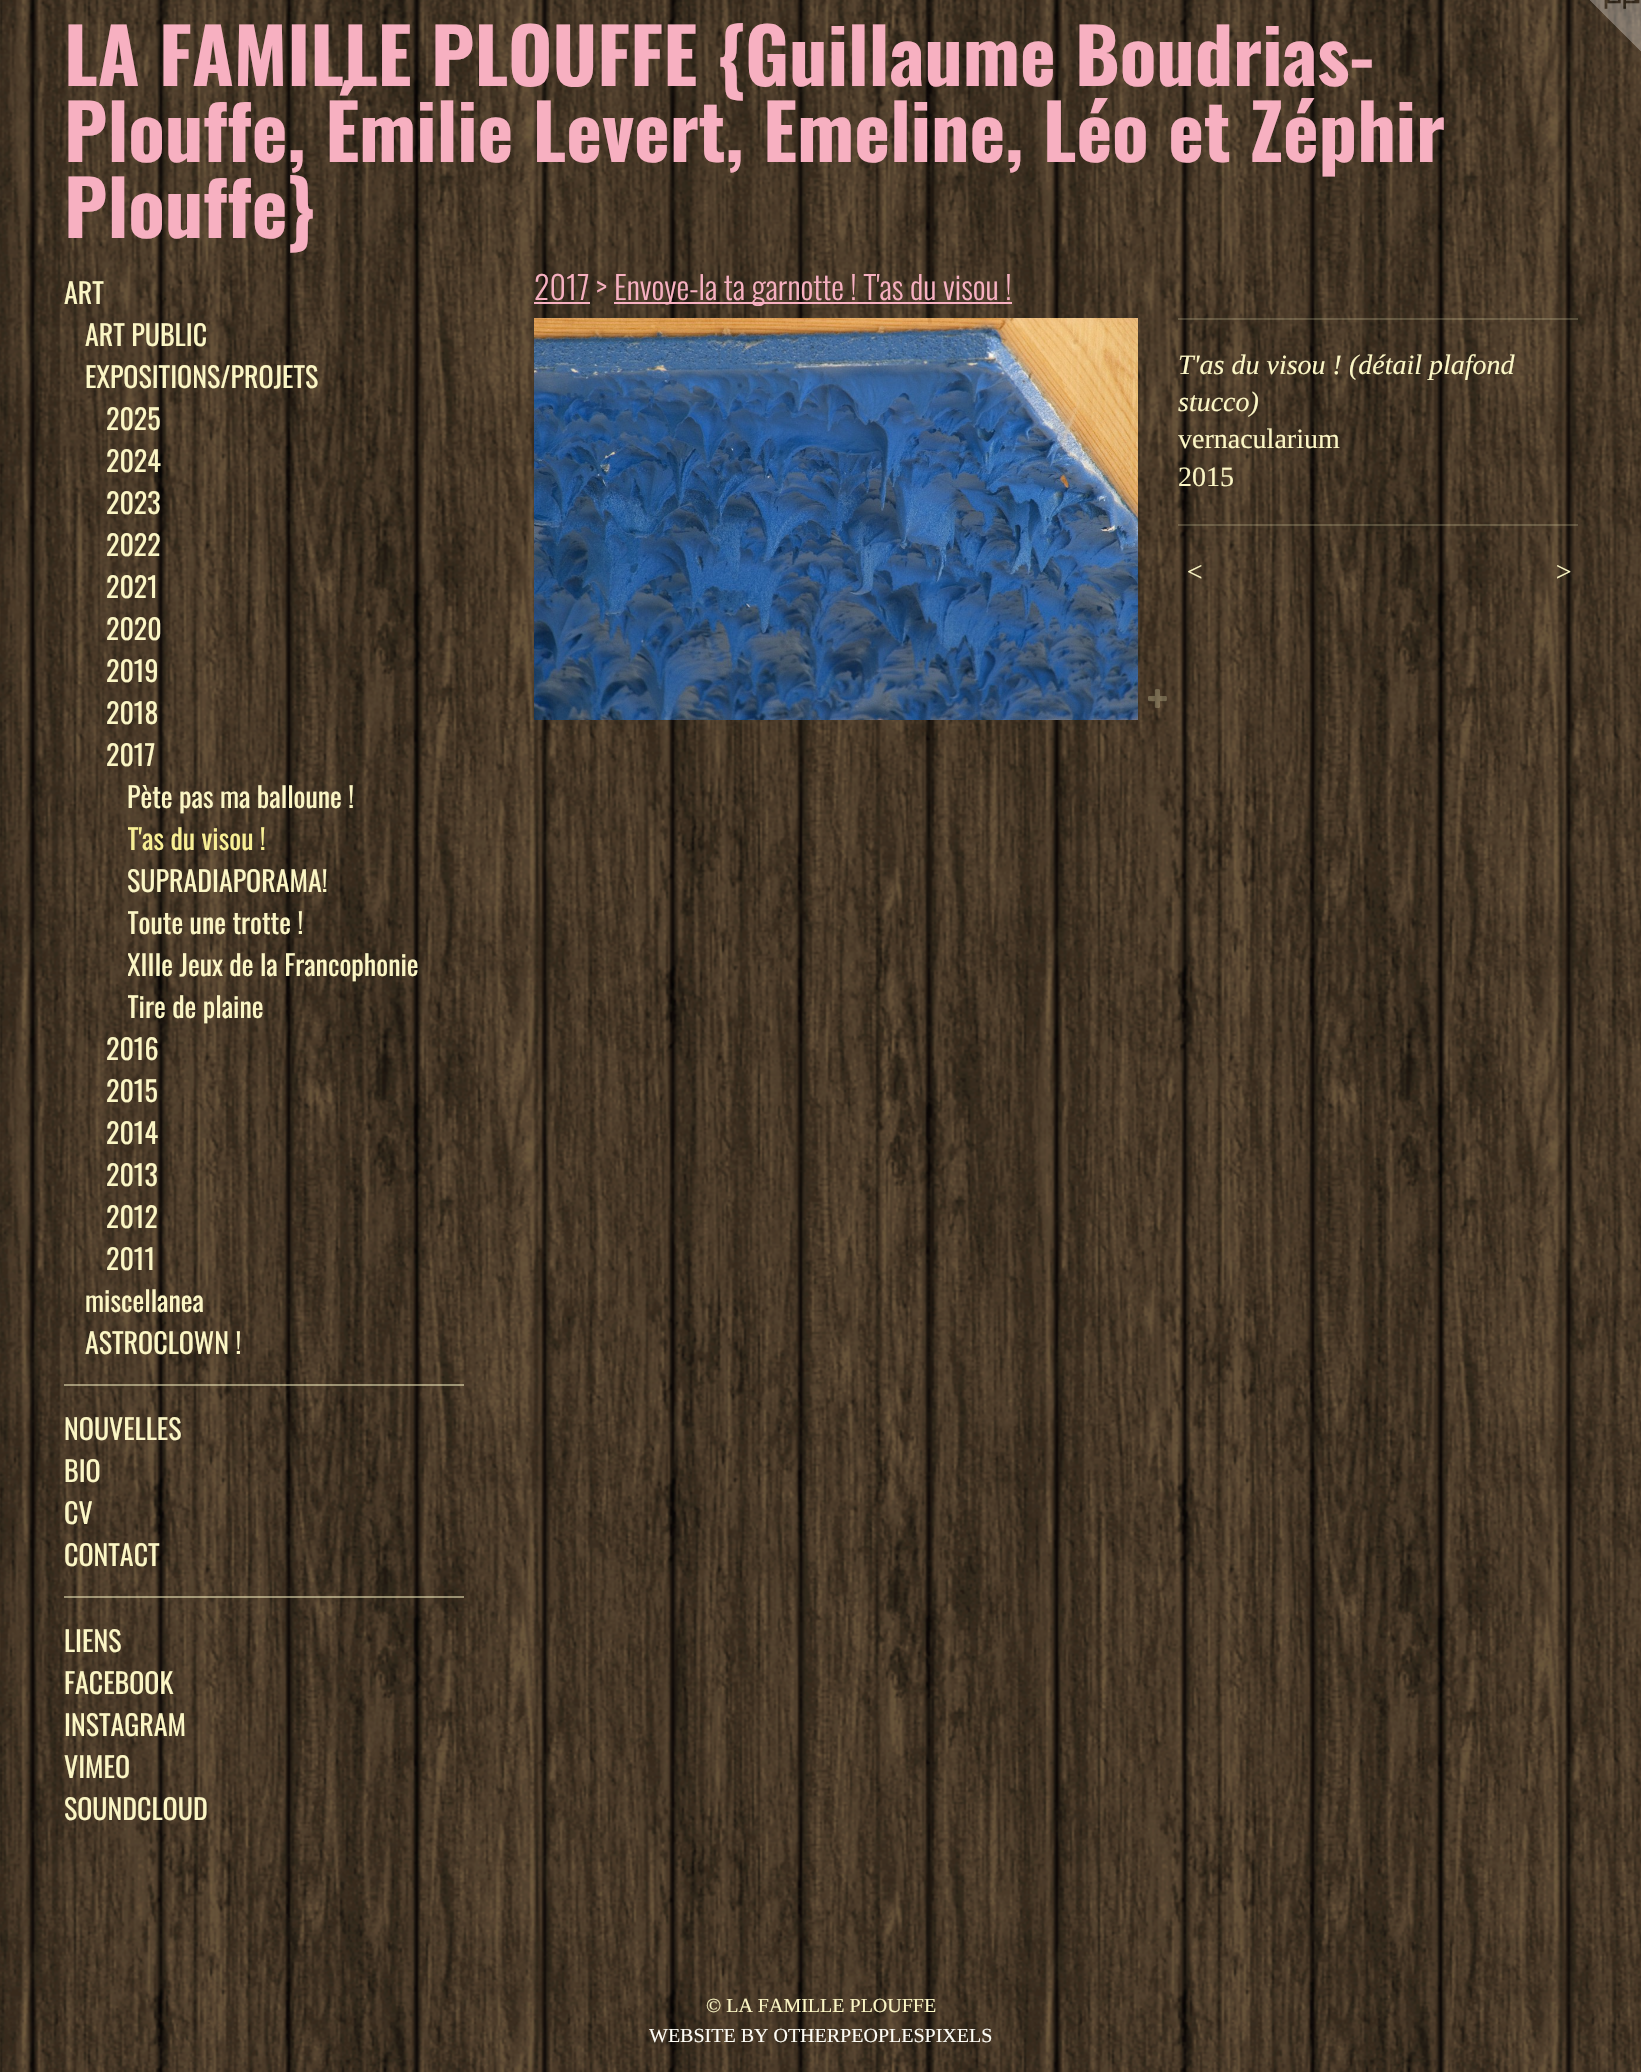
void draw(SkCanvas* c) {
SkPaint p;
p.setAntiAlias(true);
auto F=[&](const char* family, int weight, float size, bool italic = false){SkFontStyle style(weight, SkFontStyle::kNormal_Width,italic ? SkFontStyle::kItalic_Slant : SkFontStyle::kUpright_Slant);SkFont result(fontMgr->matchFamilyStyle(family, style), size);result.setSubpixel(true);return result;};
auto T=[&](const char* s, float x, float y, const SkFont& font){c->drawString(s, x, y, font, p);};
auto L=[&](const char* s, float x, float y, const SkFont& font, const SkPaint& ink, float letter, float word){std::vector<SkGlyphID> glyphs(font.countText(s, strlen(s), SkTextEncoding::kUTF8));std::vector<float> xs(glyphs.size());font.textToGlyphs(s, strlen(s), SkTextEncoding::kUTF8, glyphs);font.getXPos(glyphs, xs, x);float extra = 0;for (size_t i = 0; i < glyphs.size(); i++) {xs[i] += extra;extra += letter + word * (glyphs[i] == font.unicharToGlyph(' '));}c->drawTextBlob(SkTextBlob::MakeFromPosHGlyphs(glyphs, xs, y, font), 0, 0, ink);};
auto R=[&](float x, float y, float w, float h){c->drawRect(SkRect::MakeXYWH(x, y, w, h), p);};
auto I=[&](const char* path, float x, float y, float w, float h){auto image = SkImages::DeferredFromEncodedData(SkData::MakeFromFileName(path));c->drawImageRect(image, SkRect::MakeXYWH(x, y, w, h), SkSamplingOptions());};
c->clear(0xffffffff);
I("1.png",0,0,1641,2072);
auto f1 = F("Oswald",700,76);
p.setColor(0xfff7b0c1);
T("LA FAMILLE PLOUFFE {Guillaume Boudrias-",64,86,f1);
T("Plouffe, Émilie Levert, Emeline, Léo et Zéphir",64,162,f1);
T("Plouffe}",64,238,f1);
I("2.png",1590,0,51,51);
auto f2 = F("Oswald",400,28);
p.setColor(0xfffbf6c5);
T("ART",64,304,f2);
T("ART PUBLIC",85,346,f2);
T("EXPOSITIONS/PROJETS",85,388,f2);
T("2025",106,430,f2);
T("2024",106,472,f2);
T("2023",106,514,f2);
T("2022",106,556,f2);
T("2021",106,598,f2);
T("2020",106,640,f2);
T("2019",106,682,f2);
T("2018",106,724,f2);
T("2017",106,766,f2);
T("Pète pas ma balloune !",127,808,f2);
c->save();
c->clipRect(SkRect::MakeXYWH(128,816,336,42));
p.setColor(0xfff8ef95);
T("T'as du visou !",127,850,f2);
c->restore();
p.setColor(0xfffbf6c5);
T("SUPRADIAPORAMA!",127,892,f2);
c->save();
c->clipRect(SkRect::MakeXYWH(128,900,336,42));
T("Toute une trotte !",127,934,f2);
c->restore();
c->save();
c->clipRect(SkRect::MakeXYWH(128,942,336,42));
T("XIIIe Jeux de la Francophonie",127,976,f2);
c->restore();
c->save();
c->clipRect(SkRect::MakeXYWH(128,984,336,42));
T("Tire de plaine",127,1018,f2);
c->restore();
T("2016",106,1060,f2);
T("2015",106,1102,f2);
T("2014",106,1144,f2);
T("2013",106,1186,f2);
T("2012",106,1228,f2);
T("2011",106,1270,f2);
T("miscellanea",85,1312,f2);
T("ASTROCLOWN !",85,1354,f2);
p.setColor(0x80fbf6c5);
R(64,1384,400,2);
p.setColor(0xfffbf6c5);
T("NOUVELLES",64,1440,f2);
T("BIO",64,1482,f2);
T("CV",64,1524,f2);
T("CONTACT",64,1566,f2);
p.setColor(0x80fbf6c5);
R(64,1596,400,2);
p.setColor(0xfffbf6c5);
T("LIENS",64,1652,f2);
T("FACEBOOK",64,1694,f2);
T("INSTAGRAM",64,1736,f2);
T("VIMEO",64,1778,f2);
T("SOUNDCLOUD",64,1820,f2);
auto f3 = F("Oswald",300,32);
p.setColor(0xfff7b0c1);
T("2017 >",534,300,f3);
R(534,302,56,2);
R(614,302,398,2);
T("Envoye-la ta garnotte ! T'as du visou !",614,300,f3);
I("3.png",534,318,604,402);
I("4.png",1148,689,19,19);
p.setColor(0x33fbf6c5);
R(1178,318,400,2);
auto f4 = F("Liberation Serif",400,28,true);
p.setColor(0xfffbf6c5);
T("T'as du visou ! (détail plafond",1178,374,f4);
T("stucco)",1178,411,f4);
auto f5 = F("Liberation Serif",400,28);
T("vernacularium",1178,448,f5);
T("2015",1178,486,f5);
p.setColor(0x33fbf6c5);
R(1178,524,400,2);
p.setColor(0xfffbf6c5);
L("<",1185,581,f4,p,2,0);
L(">",1554,581,f4,p,2,0);
auto f6 = F("Liberation Serif",400,20);
T("© LA FAMILLE PLOUFFE",706,2012,f6);
p.setColor(0xfffefdf6);
T("WEBSITE BY OTHERPEOPLESPIXELS",649,2042,f6);
}
